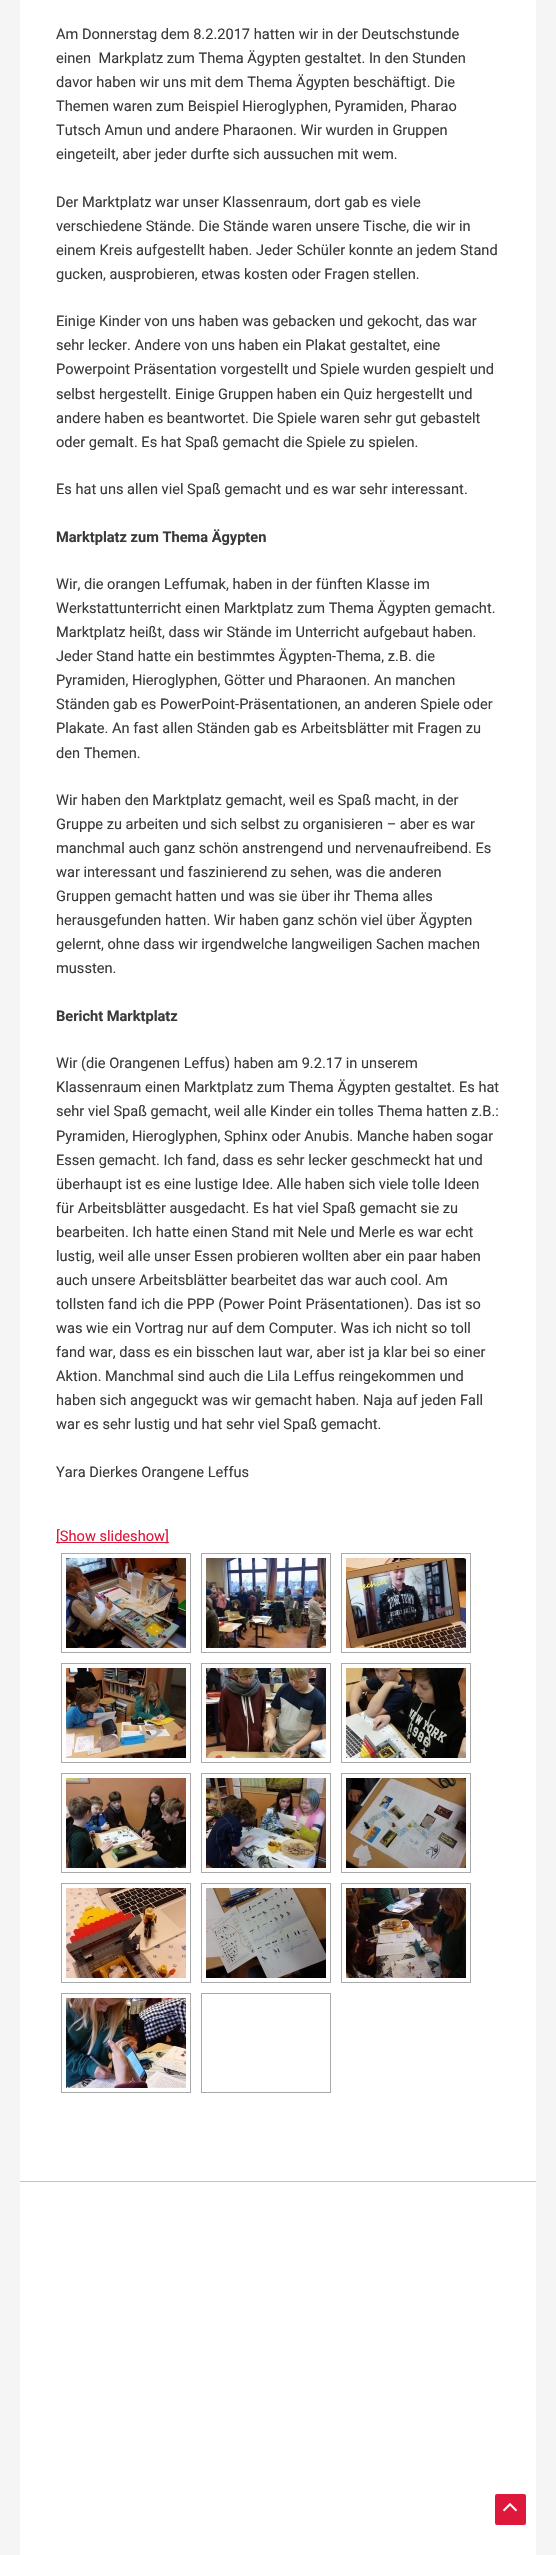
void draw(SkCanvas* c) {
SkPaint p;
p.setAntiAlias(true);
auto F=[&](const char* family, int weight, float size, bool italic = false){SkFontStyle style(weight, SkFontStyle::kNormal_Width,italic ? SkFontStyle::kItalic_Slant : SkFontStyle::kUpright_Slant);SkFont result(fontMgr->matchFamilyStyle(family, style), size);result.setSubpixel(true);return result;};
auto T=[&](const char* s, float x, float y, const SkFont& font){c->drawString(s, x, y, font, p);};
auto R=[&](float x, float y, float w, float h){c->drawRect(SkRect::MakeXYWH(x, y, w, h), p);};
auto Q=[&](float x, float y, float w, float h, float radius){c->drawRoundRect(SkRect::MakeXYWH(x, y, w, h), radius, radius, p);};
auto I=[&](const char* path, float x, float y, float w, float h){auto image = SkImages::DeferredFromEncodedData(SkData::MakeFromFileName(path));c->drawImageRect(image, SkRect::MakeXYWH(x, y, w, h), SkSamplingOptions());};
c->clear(0xfff5f5f5);
p.setColor(0xffffffff);
R(20,0,516,2181);
auto f1 = F("Roboto",400,14.6);
p.setColor(0xff3a3a3a);
T("Am Donnerstag dem 8.2.2017 hatten wir in der Deutschstunde",56,39,f1);
T("einen  Markplatz zum Thema Ägypten gestaltet. In den Stunden",56,63,f1);
T("davor haben wir uns mit dem Thema Ägypten beschäftigt. Die",56,87,f1);
T("Themen waren zum Beispiel Hieroglyphen, Pyramiden, Pharao",56,111,f1);
T("Tutsch Amun und andere Pharaonen. Wir wurden in Gruppen",56,135,f1);
T("eingeteilt, aber jeder durfte sich aussuchen mit wem.",56,159,f1);
T("Der Marktplatz war unser Klassenraum, dort gab es viele",56,207,f1);
T("verschiedene Stände. Die Stände waren unsere Tische, die wir in",56,231,f1);
T("einem Kreis aufgestellt haben. Jeder Schüler konnte an jedem Stand",56,255,f1);
T("gucken, ausprobieren, etwas kosten oder Fragen stellen.",56,279,f1);
T("Einige Kinder von uns haben was gebacken und gekocht, das war",56,326,f1);
T("sehr lecker. Andere von uns haben ein Plakat gestaltet, eine",56,350,f1);
T("Powerpoint Präsentation vorgestellt und Spiele wurden gespielt und",56,374,f1);
T("selbst hergestellt. Einige Gruppen haben ein Quiz hergestellt und",56,399,f1);
T("andere haben es beantwortet. Die Spiele waren sehr gut gebastelt",56,423,f1);
T("oder gemalt. Es hat Spaß gemacht die Spiele zu spielen.",56,447,f1);
T("Es hat uns allen viel Spaß gemacht und es war sehr interessant.",56,494,f1);
auto f2 = F("Roboto",700,14.6);
T("Marktplatz zum Thema Ägypten",56,542,f2);
T("Wir, die orangen Leffumak, haben in der fünften Klasse im",56,589,f1);
T("Werkstattunterricht einen Marktplatz zum Thema Ägypten gemacht.",56,613,f1);
T("Marktplatz heißt, dass wir Stände im Unterricht aufgebaut haben.",56,637,f1);
T("Jeder Stand hatte ein bestimmtes Ägypten-Thema, z.B. die",56,661,f1);
T("Pyramiden, Hieroglyphen, Götter und Pharaonen. An manchen",56,685,f1);
T("Ständen gab es PowerPoint-Präsentationen, an anderen Spiele oder",56,709,f1);
T("Plakate. An fast allen Ständen gab es Arbeitsblätter mit Fragen zu",56,733,f1);
T("den Themen.",56,758,f1);
T("Wir haben den Marktplatz gemacht, weil es Spaß macht, in der",56,805,f1);
T("Gruppe zu arbeiten und sich selbst zu organisieren – aber es war",56,829,f1);
T("manchmal auch ganz schön anstrengend und nervenaufreibend. Es",56,853,f1);
T("war interessant und faszinierend zu sehen, was die anderen",56,877,f1);
T("Gruppen gemacht hatten und was sie über ihr Thema alles",56,901,f1);
T("herausgefunden hatten. Wir haben ganz schön viel über Ägypten",56,925,f1);
T("gelernt, ohne dass wir irgendwelche langweiligen Sachen machen",56,949,f1);
T("mussten.",56,973,f1);
T("Bericht Marktplatz",56,1021,f2);
T("Wir (die Orangenen Leffus) haben am 9.2.17 in unserem",56,1068,f1);
T("Klassenraum einen Marktplatz zum Thema Ägypten gestaltet. Es hat",56,1092,f1);
T("sehr viel Spaß gemacht, weil alle Kinder ein tolles Thema hatten z.B.:",56,1116,f1);
T("Pyramiden, Hieroglyphen, Sphinx oder Anubis. Manche haben sogar",56,1141,f1);
T("Essen gemacht. Ich fand, dass es sehr lecker geschmeckt hat und",56,1165,f1);
T("überhaupt ist es eine lustige Idee. Alle haben sich viele tolle Ideen",56,1189,f1);
T("für Arbeitsblätter ausgedacht. Es hat viel Spaß gemacht sie zu",56,1213,f1);
T("bearbeiten. Ich hatte einen Stand mit Nele und Merle es war echt",56,1237,f1);
T("lustig, weil alle unser Essen probieren wollten aber ein paar haben",56,1261,f1);
T("auch unsere Arbeitsblätter bearbeitet das war auch cool. Am",56,1285,f1);
T("tollsten fand ich die PPP (Power Point Präsentationen). Das ist so",56,1309,f1);
T("was wie ein Vortrag nur auf dem Computer. Was ich nicht so toll",56,1333,f1);
T("fand war, dass es ein bisschen laut war, aber ist ja klar bei so einer",56,1357,f1);
T("Aktion. Manchmal sind auch die Lila Leffus reingekommen und",56,1381,f1);
T("haben sich angeguckt was wir gemacht haben. Naja auf jeden Fall",56,1405,f1);
T("war es sehr lustig und hat sehr viel Spaß gemacht.",56,1429,f1);
T("Yara Dierkes Orangene Leffus",56,1477,f1);
p.setColor(0xffdd183b);
R(56,1542,113,1);
T("[Show slideshow]",56,1541,f1);
p.setStroke(true);
p.setStrokeWidth(1);
p.setColor(0xffa9a9a9);
c->drawRect(SkRect::MakeXYWH(61.5,1553.5,129,99),p);
I("1.png",66,1558,120,90);
c->drawRect(SkRect::MakeXYWH(201.5,1553.5,129,99),p);
I("2.png",206,1558,120,90);
c->drawRect(SkRect::MakeXYWH(341.5,1553.5,129,99),p);
I("3.png",346,1558,120,90);
c->drawRect(SkRect::MakeXYWH(61.5,1663.5,129,99),p);
I("4.png",66,1668,120,90);
c->drawRect(SkRect::MakeXYWH(201.5,1663.5,129,99),p);
I("5.png",206,1668,120,90);
c->drawRect(SkRect::MakeXYWH(341.5,1663.5,129,99),p);
I("6.png",346,1668,120,90);
c->drawRect(SkRect::MakeXYWH(61.5,1773.5,129,99),p);
I("7.png",66,1778,120,90);
c->drawRect(SkRect::MakeXYWH(201.5,1773.5,129,99),p);
I("8.png",206,1778,120,90);
c->drawRect(SkRect::MakeXYWH(341.5,1773.5,129,99),p);
I("9.png",346,1778,120,90);
c->drawRect(SkRect::MakeXYWH(61.5,1883.5,129,99),p);
I("10.png",66,1888,120,90);
c->drawRect(SkRect::MakeXYWH(201.5,1883.5,129,99),p);
I("11.png",206,1888,120,90);
c->drawRect(SkRect::MakeXYWH(341.5,1883.5,129,99),p);
I("12.png",346,1888,120,90);
c->drawRect(SkRect::MakeXYWH(61.5,1993.5,129,99),p);
I("13.png",66,1998,120,90);
c->drawRect(SkRect::MakeXYWH(201.5,1993.5,129,99),p);
p.setStroke(false);
p.setColor(0xffffffff);
R(20,2182,516,373);
p.setColor(0xffc3c3c3);
R(20,2181,516,1);
p.setColor(0xffdd183b);
Q(495,2494,31,31,2);
I("14.png",503,2503,15,9);
}
